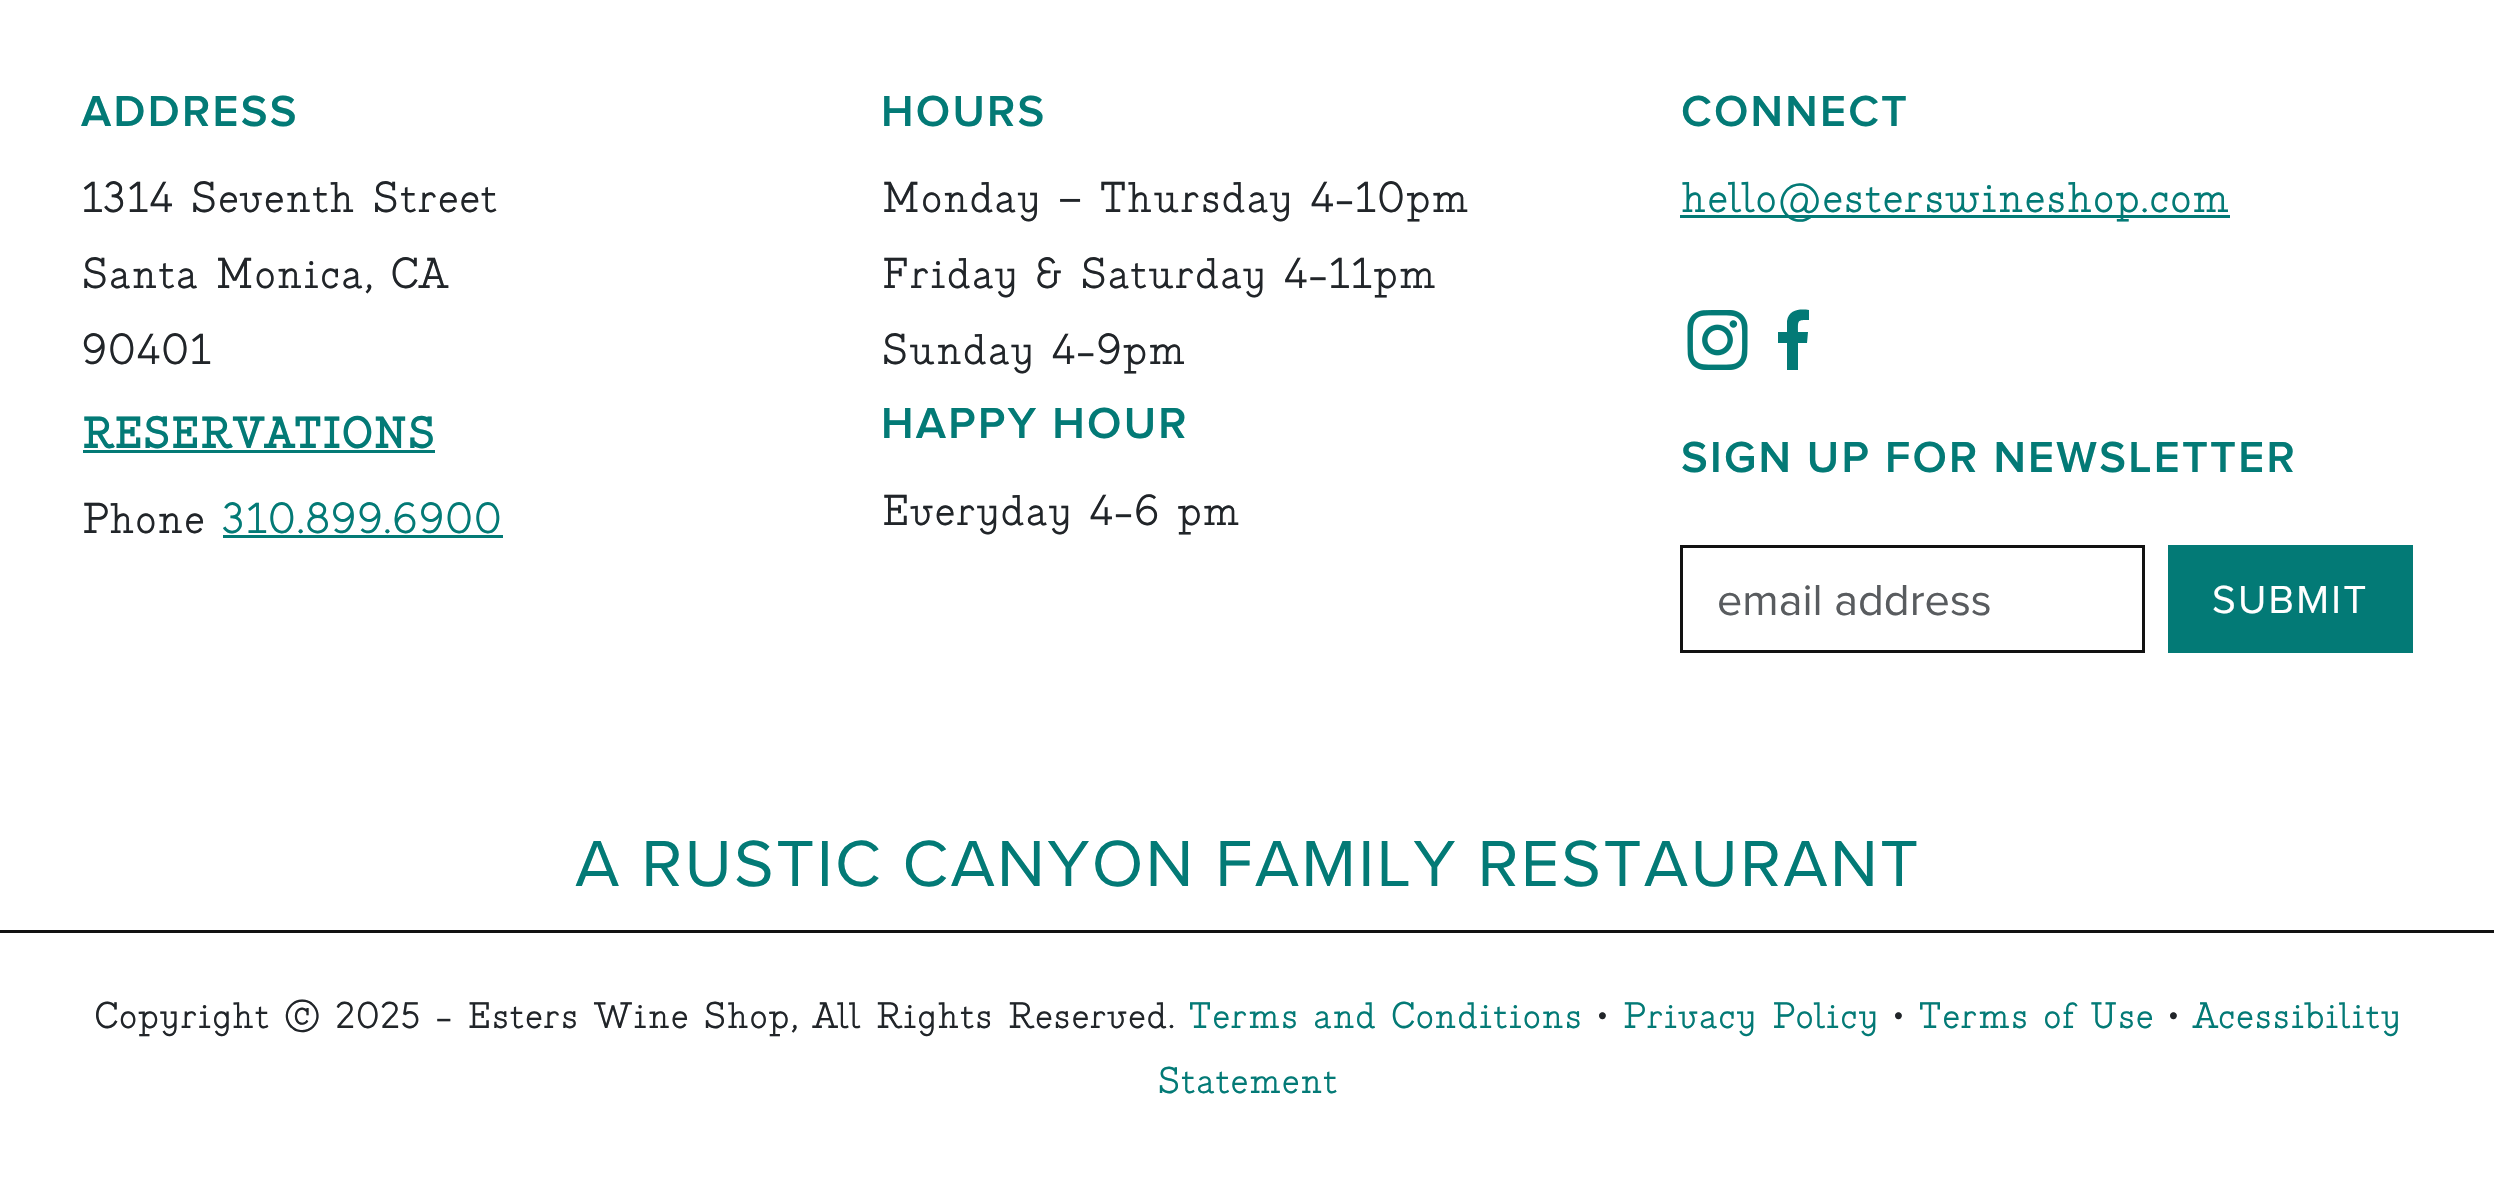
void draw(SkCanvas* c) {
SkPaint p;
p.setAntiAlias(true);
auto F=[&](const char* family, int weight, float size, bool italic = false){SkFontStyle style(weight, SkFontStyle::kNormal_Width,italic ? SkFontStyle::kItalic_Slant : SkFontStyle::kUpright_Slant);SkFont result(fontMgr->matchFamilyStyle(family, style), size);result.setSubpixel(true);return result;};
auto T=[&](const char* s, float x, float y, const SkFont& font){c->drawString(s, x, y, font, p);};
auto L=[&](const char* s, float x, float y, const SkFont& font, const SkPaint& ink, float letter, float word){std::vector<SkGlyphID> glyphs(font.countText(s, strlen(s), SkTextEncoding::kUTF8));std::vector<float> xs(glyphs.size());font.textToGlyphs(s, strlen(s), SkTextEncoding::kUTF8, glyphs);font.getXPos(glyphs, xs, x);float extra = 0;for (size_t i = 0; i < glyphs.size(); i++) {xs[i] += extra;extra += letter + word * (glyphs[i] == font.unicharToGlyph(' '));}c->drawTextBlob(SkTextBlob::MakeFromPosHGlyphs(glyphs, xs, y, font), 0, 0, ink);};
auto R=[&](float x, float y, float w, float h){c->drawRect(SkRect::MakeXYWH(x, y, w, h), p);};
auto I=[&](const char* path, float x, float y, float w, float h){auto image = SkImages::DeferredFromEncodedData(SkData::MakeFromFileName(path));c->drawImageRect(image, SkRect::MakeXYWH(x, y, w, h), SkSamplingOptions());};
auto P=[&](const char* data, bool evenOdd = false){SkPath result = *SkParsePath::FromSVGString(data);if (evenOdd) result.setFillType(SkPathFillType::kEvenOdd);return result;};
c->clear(0xffffffff);
auto f1 = F("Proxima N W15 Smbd",600,45);
p.setColor(0xff037a76);
L("ADDRESS",81,126,f1,p,2.25,0);
auto f2 = F("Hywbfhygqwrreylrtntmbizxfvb",400,47.25);
p.setColor(0xff212529);
T("1314 Seventh Street",81,212,f2);
T("Santa Monica, CA",81,288,f2);
T("90401",81,364,f2);
auto f3 = F("Hywbfhygqwrreylrtntmbizxfvb",700,47.25);
p.setColor(0xff037a76);
T("RESERVATIONS",81,448,f3);
R(83,450,352,3);
p.setColor(0xff212529);
T("Phone",81,533,f2);
p.setColor(0xff037a76);
T("310.899.6900",222,533,f2);
R(223,535,280,3);
L("HOURS",881,126,f1,p,2.25,0);
p.setColor(0xff212529);
T("Monday – Thursday 4-10pm",881,212,f2);
T("Friday & Saturday 4-11pm",881,288,f2);
T("Sunday 4-9pm",881,364,f2);
p.setColor(0xff037a76);
L("HAPPY HOUR",881,438,f1,p,2.25,0);
p.setColor(0xff212529);
T("Everyday 4-6 pm",881,525,f2);
p.setColor(0xff037a76);
L("CONNECT",1681,126,f1,p,2.25,0);
R(1680,215,550,3);
T("hello@esterswineshop.com",1681,212,f2);
I("1.png",1687,310,61,60);
c->drawPath(P("M1787 370h11v-27h9l1-11h-10c0-12-1-12 11-12v-10c-9-1-20-1-22 11v11h-9v11h9z"),p);
L("SIGN UP FOR NEWSLETTER",1681,472,f1,p,2.25,0);
p.setStroke(true);
p.setStrokeWidth(3);
p.setColor(0xff111111);
c->drawRect(SkRect::MakeXYWH(1681.5,546.5,462,105),p);
auto f4 = F("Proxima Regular",400,45);
p.setStroke(false);
p.setColor(0xff595c5f);
T("email address",1717,615,f4);
p.setColor(0xff037a76);
R(2168,545,245,108);
auto f5 = F("Proxima Regular",400,40.5);
p.setColor(0xffffffff);
L("SUBMIT",2212,613,f5,p,2.25,0);
auto f6 = F("Proxima Regular",400,67.5);
p.setColor(0xff037a76);
L("A RUSTIC CANYON FAMILY RESTAURANT",575,886,f6,p,2.25,0);
p.setColor(0xff111111);
R(0,930,2494,3);
auto f7 = F("Hywbfhygqwrreylrtntmbizxfvb",400,40.5);
p.setColor(0xff212529);
T("Copyright © 2025 - Esters Wine Shop, All Rights Reserved.",94,1028,f7);
p.setColor(0xff037a76);
T("Terms and Conditions",1188,1028,f7);
p.setColor(0xff212529);
T("•",1597,1028,f7);
p.setColor(0xff037a76);
T("Privacy Policy",1622,1028,f7);
p.setColor(0xff212529);
T("•",1893,1028,f7);
p.setColor(0xff037a76);
T("Terms of Use",1918,1028,f7);
p.setColor(0xff212529);
T("•",2168,1028,f7);
p.setColor(0xff037a76);
T("Acessibility",2193,1028,f7);
T("Statement",1157,1093,f7);
}
